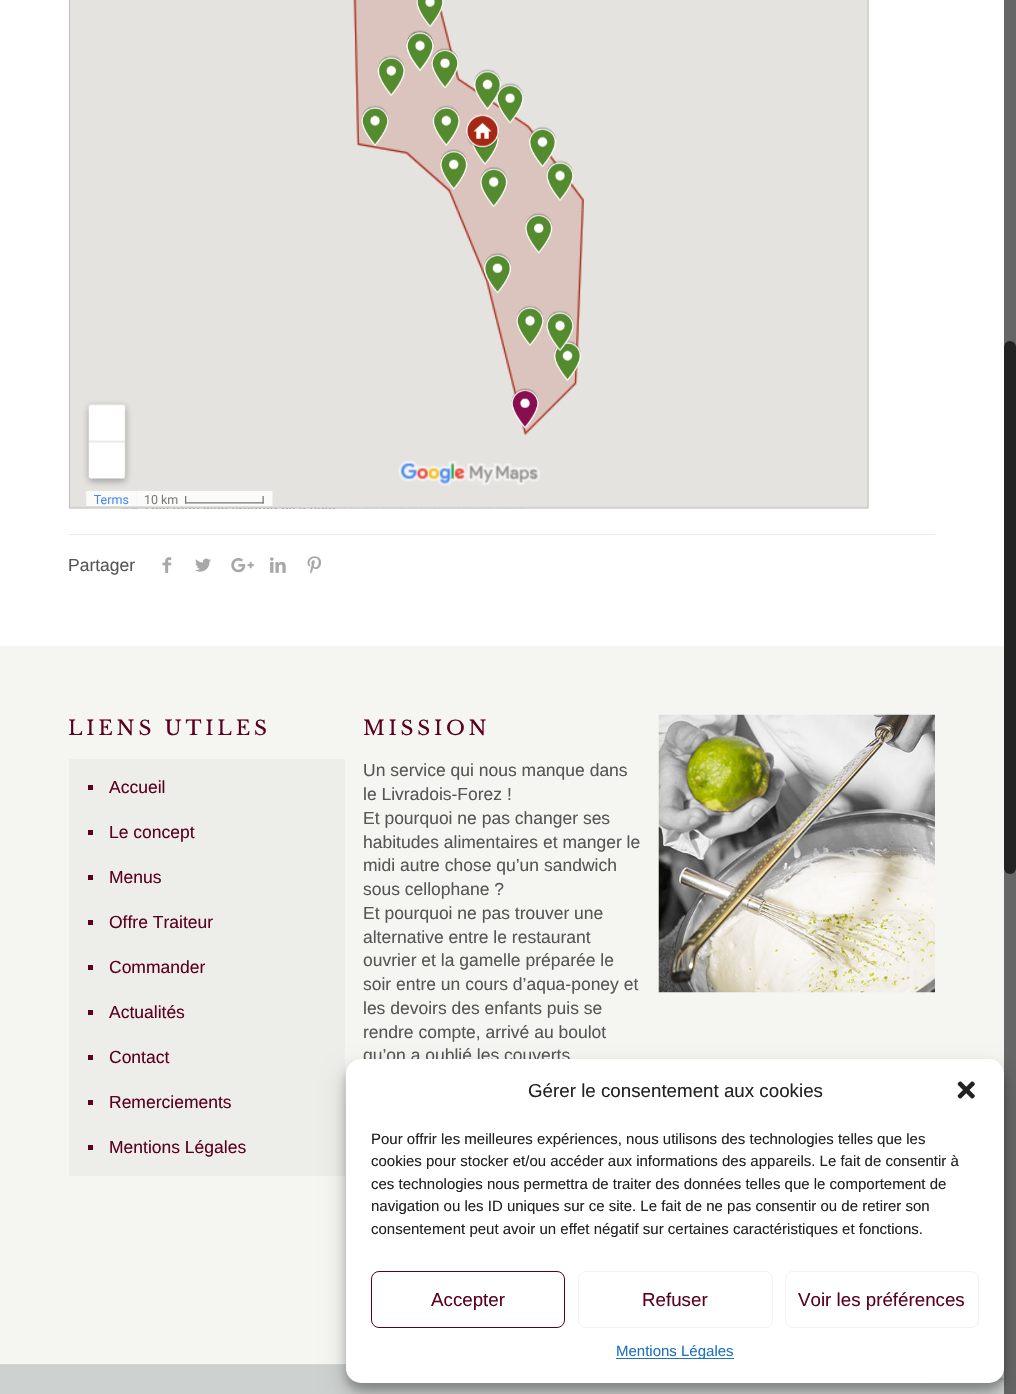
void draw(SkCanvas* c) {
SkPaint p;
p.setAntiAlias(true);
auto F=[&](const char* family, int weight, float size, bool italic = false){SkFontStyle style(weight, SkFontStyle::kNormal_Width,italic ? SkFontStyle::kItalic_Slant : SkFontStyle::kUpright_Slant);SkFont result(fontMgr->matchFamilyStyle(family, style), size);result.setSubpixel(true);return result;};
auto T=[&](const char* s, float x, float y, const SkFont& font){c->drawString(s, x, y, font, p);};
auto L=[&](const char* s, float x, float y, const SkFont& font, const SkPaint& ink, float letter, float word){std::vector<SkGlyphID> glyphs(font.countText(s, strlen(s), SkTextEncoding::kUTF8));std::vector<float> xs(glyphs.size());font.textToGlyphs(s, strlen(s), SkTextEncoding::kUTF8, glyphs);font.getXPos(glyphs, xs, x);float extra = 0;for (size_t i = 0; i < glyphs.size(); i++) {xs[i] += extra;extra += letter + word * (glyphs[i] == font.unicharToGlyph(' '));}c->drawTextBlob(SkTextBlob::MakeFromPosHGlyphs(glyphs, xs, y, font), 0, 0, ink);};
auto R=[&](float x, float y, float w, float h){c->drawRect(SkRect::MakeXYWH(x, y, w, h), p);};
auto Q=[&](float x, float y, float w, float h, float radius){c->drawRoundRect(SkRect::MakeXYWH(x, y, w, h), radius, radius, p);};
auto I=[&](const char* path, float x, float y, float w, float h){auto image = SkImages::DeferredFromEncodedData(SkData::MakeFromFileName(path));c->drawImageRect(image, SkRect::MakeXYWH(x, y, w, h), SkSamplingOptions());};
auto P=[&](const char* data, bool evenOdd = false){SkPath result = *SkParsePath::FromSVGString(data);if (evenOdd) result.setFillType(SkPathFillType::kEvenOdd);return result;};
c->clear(0xffffffff);
I("1.png",68,0,801,509);
p.setColor(0xffebebeb);
R(69,534,866,1);
auto f1 = F("Liberation Sans",400,17.5);
p.setColor(0xff565655);
T("Partager",68,571,f1);
I("2.png",162,557,10,16);
I("3.png",195,558,16,14);
I("4.png",231,558,23,15);
I("5.png",270,557,16,16);
I("6.png",307,556,15,18);
p.setColor(0xfff5f5f1);
R(0,646,1004,718);
auto f2 = F("Libre Baskerville",400,20);
p.setColor(0xff5b0021);
L("LIENS UTILES",68,735,f2,p,3.75,0);
p.setColor(0xffedede9);
R(69,759,276,417);
p.setColor(0xff5b0021);
R(88,785,5,5);
T("Accueil",109,793,f1);
R(88,830,5,5);
T("Le concept",109,838,f1);
R(88,875,5,5);
T("Menus",109,883,f1);
R(88,920,5,5);
T("Offre Traiteur",109,928,f1);
R(88,965,5,5);
T("Commander",109,973,f1);
R(88,1010,5,5);
T("Actualités",109,1018,f1);
R(88,1055,5,5);
T("Contact",109,1063,f1);
R(88,1100,5,5);
T("Remerciements",109,1108,f1);
R(88,1145,5,5);
T("Mentions Légales",109,1153,f1);
L("MISSION",363,735,f2,p,3.75,0);
p.setColor(0xff565655);
T("Un service qui nous manque dans",363,776,f1);
T("le Livradois-Forez !",363,800,f1);
T("Et pourquoi ne pas changer ses",363,824,f1);
T("habitudes alimentaires et manger le",363,848,f1);
T("midi autre chose qu’un sandwich",363,871,f1);
T("sous cellophane ?",363,895,f1);
T("Et pourquoi ne pas trouver une",363,919,f1);
T("alternative entre le restaurant",363,943,f1);
T("ouvrier et la gamelle préparée le",363,966,f1);
T("soir entre un cours d’aqua-poney et",363,990,f1);
T("les devoirs des enfants puis se",363,1014,f1);
T("rendre compte, arrivé au boulot",363,1038,f1);
T("qu’on a oublié les couverts",363,1061,f1);
I("7.png",658,714,277,279);
p.setColor(0xffcdd1cf);
R(0,1365,1004,29);
p.setColor(0xffd2d6d4);
R(0,1364,346,1);
c->save();
c->clipPath(P("M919 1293h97v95h-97zm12.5 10h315c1.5 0 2.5 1 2.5 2.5v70c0 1.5-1 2.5-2.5 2.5h-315c-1.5 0-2.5-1-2.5-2.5v-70c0-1.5 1-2.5 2.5-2.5z",true),true);
p.setColor(0xff808080);
p.setMaskFilter(SkMaskFilter::MakeBlur(kNormal_SkBlurStyle, 3));
c->drawRoundRect(SkRect::MakeXYWH(929,1303,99,75),2.5,2.5,p);
p.setMaskFilter(nullptr);
c->restore();
p.setColor(0xff666666);
R(1004,0,12,1394);
p.setColor(0xff222222);
Q(1004,341,12,533,6);
p.setColor(0x3b000000);
p.setMaskFilter(SkMaskFilter::MakeBlur(kNormal_SkBlurStyle, 4));
c->drawRoundRect(SkRect::MakeXYWH(346,1066,658,324),15,15,p);
p.setMaskFilter(nullptr);
p.setColor(0x30000000);
p.setMaskFilter(SkMaskFilter::MakeBlur(kNormal_SkBlurStyle, 12.5));
c->drawRoundRect(SkRect::MakeXYWH(346,1071,658,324),15,15,p);
p.setMaskFilter(nullptr);
p.setColor(0xffffffff);
Q(346,1059,658,324,15);
auto f3 = F("Liberation Sans",400,18.75);
p.setColor(0xff222222);
T("Gérer le consentement aux cookies",528,1097,f3);
I("8.png",957,1081,18,18);
auto f4 = F("Liberation Sans",400,15);
T("Pour offrir les meilleures expériences, nous utilisons des technologies telles que les",371,1144,f4);
T("cookies pour stocker et/ou accéder aux informations des appareils. Le fait de consentir à",371,1166,f4);
T("ces technologies nous permettra de traiter des données telles que le comportement de",371,1189,f4);
T("navigation ou les ID uniques sur ce site. Le fait de ne pas consentir ou de retirer son",371,1211,f4);
T("consentement peut avoir un effet négatif sur certaines caractéristiques et fonctions.",371,1234,f4);
p.setStroke(true);
p.setStrokeWidth(1);
p.setColor(0xff5b0021);
c->drawRoundRect(SkRect::MakeXYWH(371.5,1271.5,193,56),7.5,7.5,p);
p.setStroke(false);
T("Accepter",431,1306,f3);
p.setStroke(true);
p.setColor(0xfff2f2f2);
c->drawRoundRect(SkRect::MakeXYWH(578.5,1271.5,194,56),7.5,7.5,p);
p.setStroke(false);
p.setColor(0xff5b0021);
T("Refuser",642,1306,f3);
p.setStroke(true);
p.setColor(0xfff2f2f2);
c->drawRoundRect(SkRect::MakeXYWH(785.5,1271.5,193,56),7.5,7.5,p);
p.setStroke(false);
p.setColor(0xff5b0021);
T("Voir les préférences",798,1306,f3);
p.setColor(0xff1e73be);
R(616,1358,118,1);
T("Mentions Légales",616,1356,f4);
}
